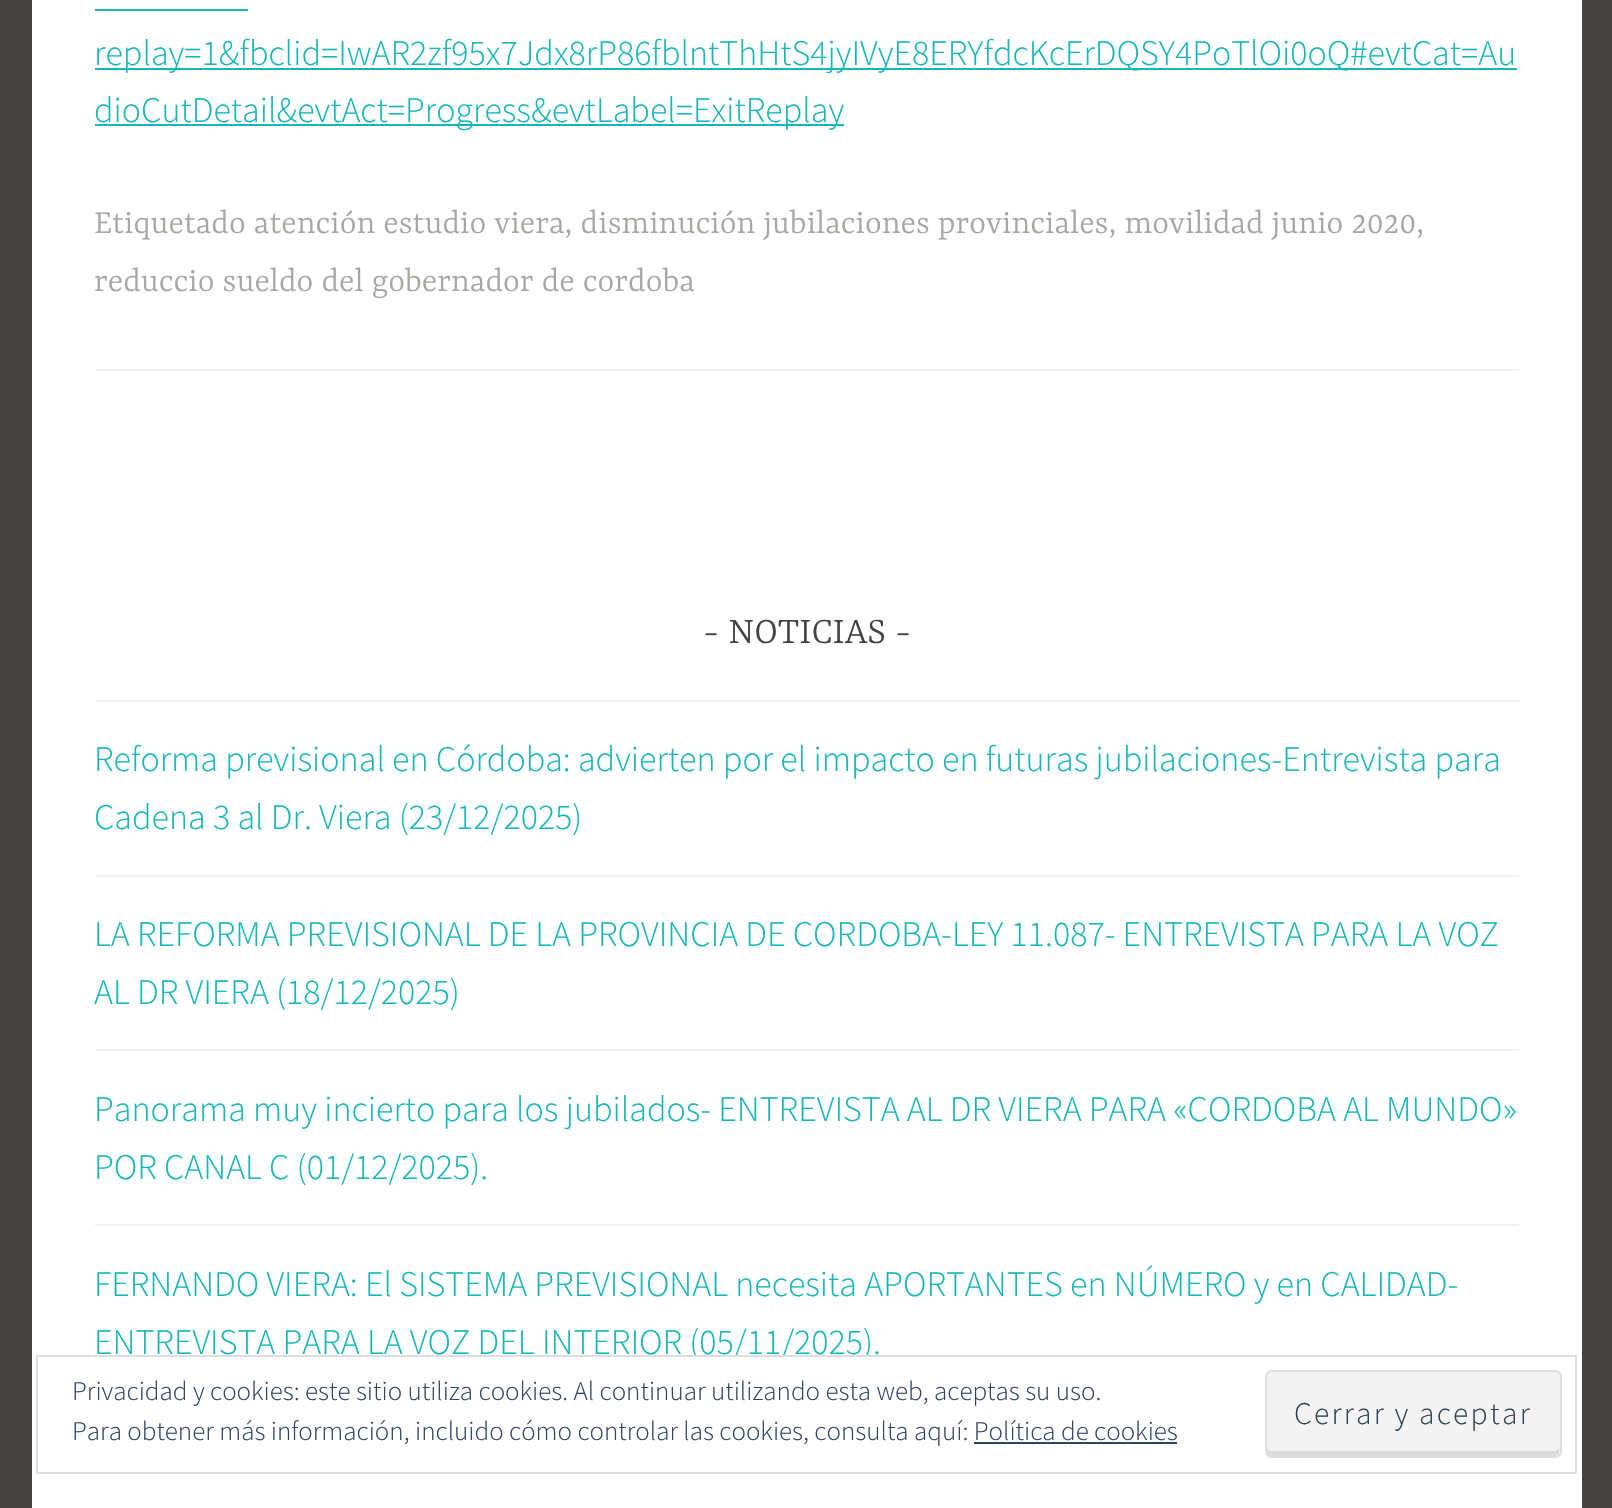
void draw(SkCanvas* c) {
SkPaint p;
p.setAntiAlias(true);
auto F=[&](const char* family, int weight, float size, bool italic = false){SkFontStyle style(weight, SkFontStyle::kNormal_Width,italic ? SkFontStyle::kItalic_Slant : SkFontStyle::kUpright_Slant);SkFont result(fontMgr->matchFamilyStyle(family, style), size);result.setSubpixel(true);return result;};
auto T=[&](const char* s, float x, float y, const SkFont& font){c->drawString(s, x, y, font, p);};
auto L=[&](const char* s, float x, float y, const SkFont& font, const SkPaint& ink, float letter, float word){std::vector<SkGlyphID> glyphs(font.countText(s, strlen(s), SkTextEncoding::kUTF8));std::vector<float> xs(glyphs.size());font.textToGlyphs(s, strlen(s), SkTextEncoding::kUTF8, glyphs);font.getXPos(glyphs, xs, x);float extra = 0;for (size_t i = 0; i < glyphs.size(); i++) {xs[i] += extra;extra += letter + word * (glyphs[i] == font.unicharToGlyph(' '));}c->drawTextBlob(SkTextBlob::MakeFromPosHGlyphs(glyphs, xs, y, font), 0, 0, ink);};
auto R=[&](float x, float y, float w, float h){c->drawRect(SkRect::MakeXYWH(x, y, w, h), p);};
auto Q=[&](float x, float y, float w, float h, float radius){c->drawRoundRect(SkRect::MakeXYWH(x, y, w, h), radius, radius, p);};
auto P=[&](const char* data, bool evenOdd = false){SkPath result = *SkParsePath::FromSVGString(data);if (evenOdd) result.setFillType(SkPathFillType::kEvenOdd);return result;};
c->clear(0xff444340);
p.setColor(0xffffffff);
R(32,0,1550,1508);
p.setColor(0xff15b6b8);
R(95,68,1422,2);
auto f1 = F("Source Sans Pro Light",300,36);
T("replay=1&fbclid=IwAR2zf95x7Jdx8rP86fblntThHtS4jyIVyE8ERYfdcKcErDQSY4PoTlOi0oQ#evtCat=Au",94,65,f1);
R(95,9,153,2);
R(95,124,749,2);
T("dioCutDetail&evtAct=Progress&evtLabel=ExitReplay",94,122,f1);
auto f2 = F("Yrsa",300,36);
p.setColor(0xffa8a6a1);
T("Etiquetado atención estudio viera, disminución jubilaciones provinciales, movilidad junio 2020,",94,233,f2);
T("reduccio sueldo del gobernador de cordoba",94,291,f2);
p.setColor(0xfff2f2f2);
R(95,369,1424,2);
auto f3 = F("Yrsa",300,40.5);
p.setColor(0xff444340);
T("- NOTICIAS -",703,643,f3);
p.setColor(0xfff2f2f2);
R(95,700,1424,2);
p.setColor(0xff15b6b8);
T("Reforma previsional en Córdoba: advierten por el impacto en futuras jubilaciones-Entrevista para",94,771,f1);
T("Cadena 3 al Dr. Viera (23/12/2025)",94,829,f1);
p.setColor(0xfff2f2f2);
R(95,875,1424,2);
p.setColor(0xff15b6b8);
T("LA REFORMA PREVISIONAL DE LA PROVINCIA DE CORDOBA-LEY 11.087- ENTREVISTA PARA LA VOZ",94,946,f1);
T("AL DR VIERA (18/12/2025)",94,1004,f1);
p.setColor(0xfff2f2f2);
R(95,1049,1424,2);
p.setColor(0xff15b6b8);
T("Panorama muy incierto para los jubilados- ENTREVISTA AL DR VIERA PARA «CORDOBA AL MUNDO»",94,1121,f1);
T("POR CANAL C (01/12/2025).",94,1179,f1);
p.setColor(0xfff2f2f2);
R(95,1224,1424,2);
p.setColor(0xff15b6b8);
T("FERNANDO VIERA: El SISTEMA PREVISIONAL necesita APORTANTES en NÚMERO y en CALIDAD-",94,1296,f1);
T("ENTREVISTA PARA LA VOZ DEL INTERIOR (05/11/2025).",94,1354,f1);
p.setColor(0xffffffff);
R(695,1357,172,4);
p.setStroke(true);
p.setStrokeWidth(2);
p.setColor(0xffdedede);
c->drawRect(SkRect::MakeXYWH(37,1356,1539,117),p);
auto f4 = F("Source Sans Pro Light",300,27);
p.setStroke(false);
p.setColor(0xff2e4467);
T("Privacidad y cookies: este sitio utiliza cookies. Al continuar utilizando esta web, aceptas su uso.",72,1400,f4);
T("Para obtener más información, incluido cómo controlar las cookies, consulta aquí: Política de cookies",72,1440,f4);
p.setColor(0xfff3f3f3);
Q(1265,1370,297,88,7);
p.setColor(0xffdbdbdb);
c->drawPath(P("M1267 1447v4c0 3 2 5 5 5h282c3 0 5-2 5-5v-4c0 2-2 4-4 4h-284c-2 0-4-2-4-4z"),p);
p.setStroke(true);
p.setColor(0xffdedede);
c->drawRoundRect(SkRect::MakeXYWH(1266,1371,295,86),6,6,p);
auto f5 = F("Source Sans Pro Light",300,31.5);
p.setStroke(false);
p.setColor(0xff2e4453);
L("Cerrar y aceptar",1294,1424,f5,p,2.25,0);
p.setColor(0xff2e4467);
R(974,1442,203,2);
}
